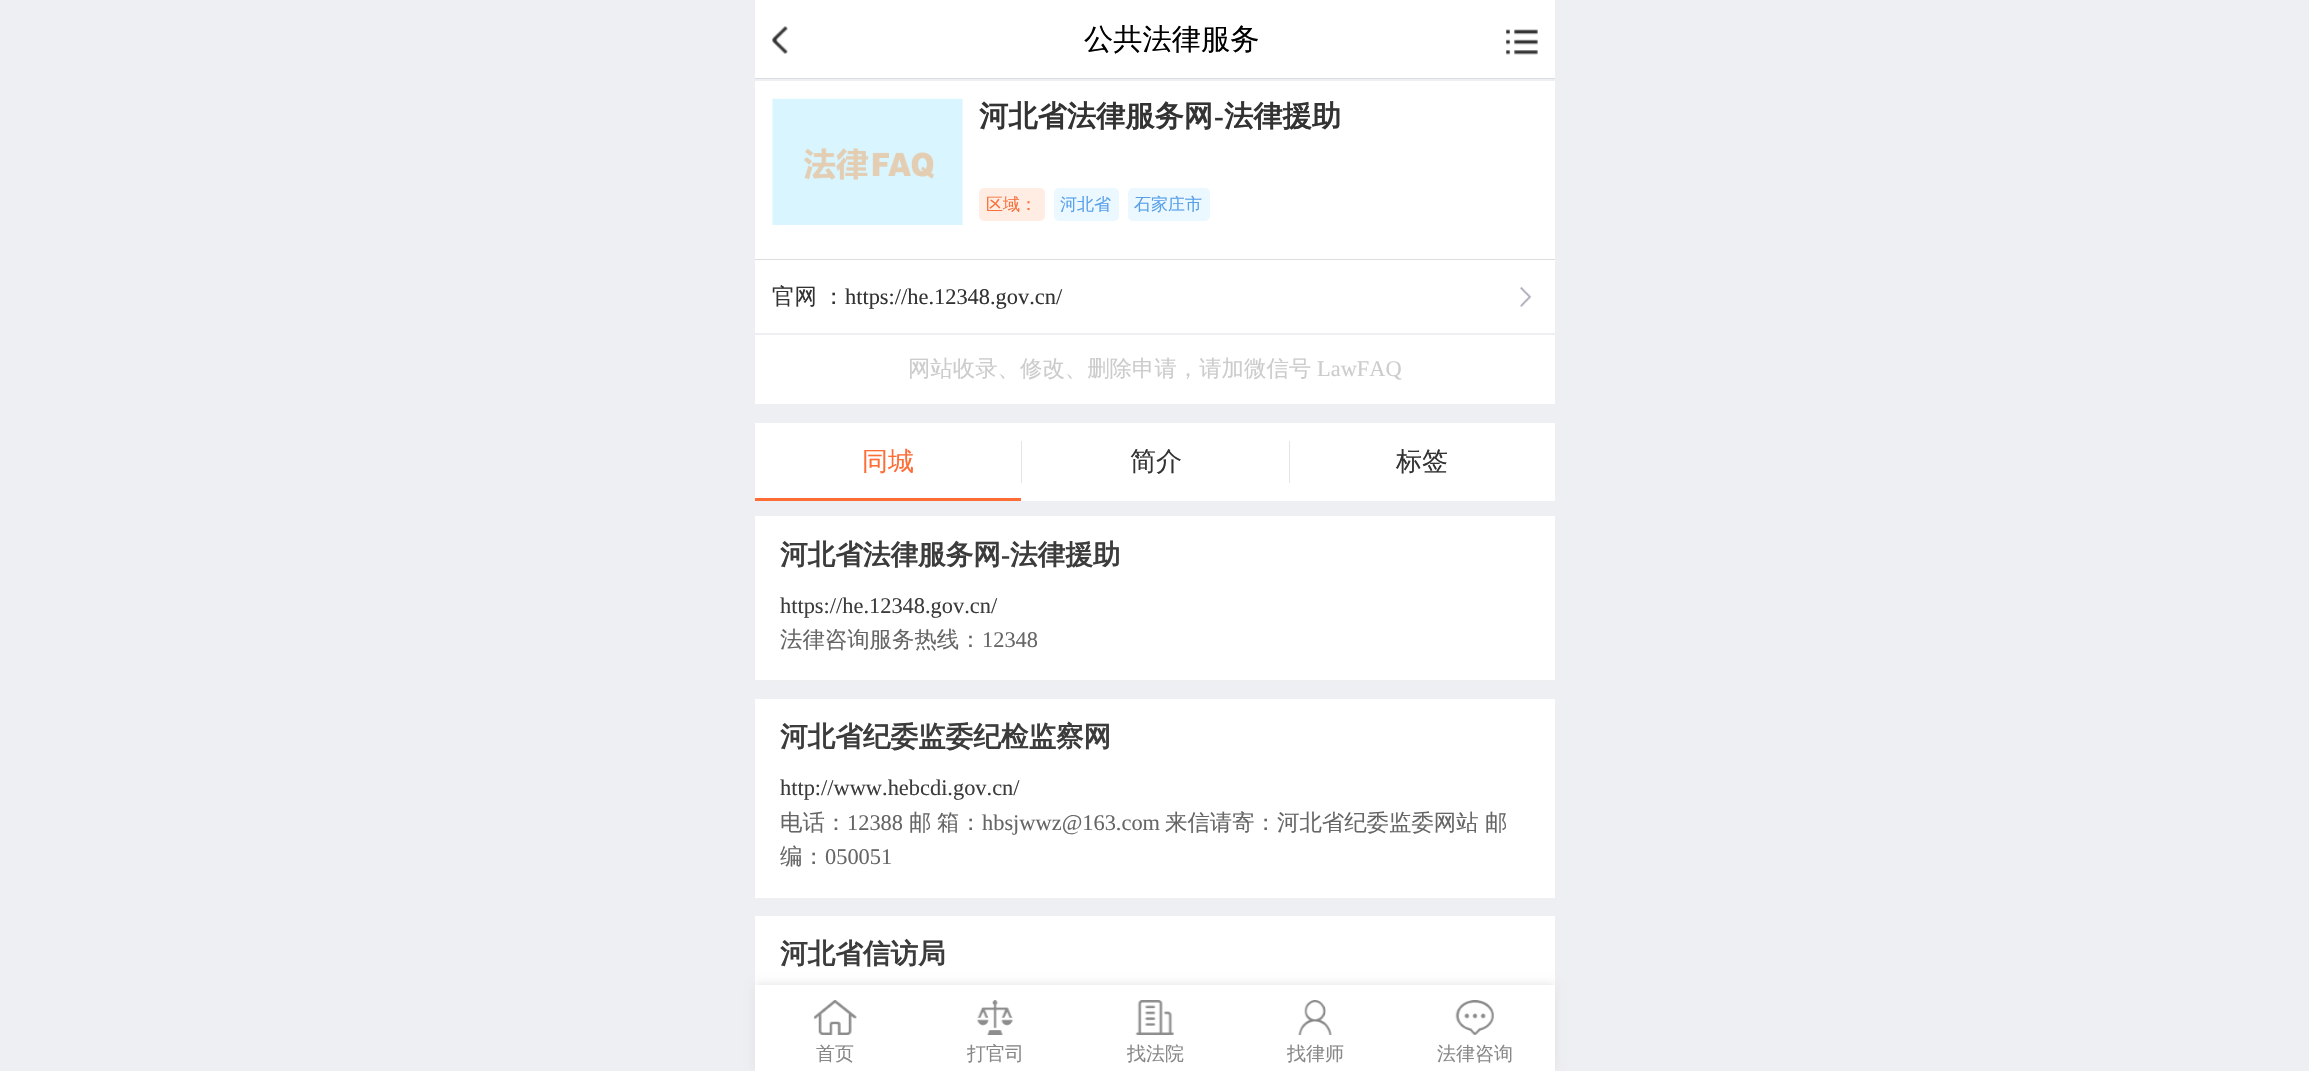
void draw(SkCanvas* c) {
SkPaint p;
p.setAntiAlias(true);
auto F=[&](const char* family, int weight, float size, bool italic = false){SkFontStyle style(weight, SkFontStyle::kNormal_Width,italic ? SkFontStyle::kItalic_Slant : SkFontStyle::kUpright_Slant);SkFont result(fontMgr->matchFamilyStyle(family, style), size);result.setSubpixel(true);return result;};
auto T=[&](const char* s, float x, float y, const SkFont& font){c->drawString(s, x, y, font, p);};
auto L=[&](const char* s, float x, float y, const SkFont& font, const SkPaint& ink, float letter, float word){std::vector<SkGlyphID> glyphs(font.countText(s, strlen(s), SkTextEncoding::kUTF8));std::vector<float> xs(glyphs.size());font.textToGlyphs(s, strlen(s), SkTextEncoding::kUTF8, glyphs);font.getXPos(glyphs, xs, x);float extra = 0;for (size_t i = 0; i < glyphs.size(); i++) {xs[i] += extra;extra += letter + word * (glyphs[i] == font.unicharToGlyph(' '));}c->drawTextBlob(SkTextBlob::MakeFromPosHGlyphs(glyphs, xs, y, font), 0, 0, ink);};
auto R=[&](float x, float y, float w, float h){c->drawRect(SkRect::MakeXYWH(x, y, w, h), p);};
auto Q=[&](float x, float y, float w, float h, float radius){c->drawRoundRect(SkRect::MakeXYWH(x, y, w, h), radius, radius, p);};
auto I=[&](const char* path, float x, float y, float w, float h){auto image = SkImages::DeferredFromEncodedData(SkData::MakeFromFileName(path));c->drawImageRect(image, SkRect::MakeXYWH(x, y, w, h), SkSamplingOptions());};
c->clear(0xffeeeff3);
p.setColor(0xffffffff);
R(755,0,800,78);
p.setColor(0xffd9dee0);
R(755,78,800,1);
I("1.png",772,26,16,28);
auto f1 = F("WenQuanYi Zen Hei",500,29.25);
p.setColor(0xff000000);
T("公共法律服务",1084,49,f1);
I("2.png",1506,29,32,26);
p.setColor(0xffffffff);
R(755,81,800,178);
I("3.png",772,98,191,127);
auto f2 = F("WenQuanYi Zen Hei",700,29.25);
p.setColor(0xff333333);
T("河北省法律服务网",979,126,f2);
auto f3 = F("Liberation Serif",700,29.25);
T("-",1214,126,f3);
T("法律援助",1224,126,f2);
p.setColor(0xffffede3);
Q(979,188,66,33,5);
auto f4 = F("WenQuanYi Zen Hei",500,17);
p.setColor(0xfff76f3a);
T("区域：",986,210,f4);
p.setColor(0xffecf8ff);
Q(1054,188,65,33,5);
p.setColor(0xff57a0e9);
T("河北省",1060,210,f4);
p.setColor(0xffecf8ff);
Q(1128,188,82,33,5);
p.setColor(0xff57a0e9);
T("石家庄市",1134,210,f4);
p.setColor(0xffffffff);
R(755,260,800,73);
I("4.png",1520,287,12,20);
p.setColor(0xffdddddd);
R(755,259,800,1);
auto f5 = F("WenQuanYi Zen Hei",500,22.4);
p.setColor(0xff333333);
L("官网 ：",772,304,f5,p,0,-1);
auto f6 = F("Liberation Serif",400,22.4);
T("https://he.12348.gov.cn/",845,304,f6);
p.setColor(0xffffffff);
R(755,335,800,69);
p.setColor(0xffcccccc);
T("网站收录、修改、删除申请，请加微信号",908,376,f5);
T("LawFAQ",1317,376,f6);
p.setColor(0xffffffff);
R(755,423,800,75);
p.setColor(0xfffe6d36);
R(755,498,266,3);
auto f7 = F("WenQuanYi Zen Hei",500,26);
T("同城",862,470,f7);
p.setColor(0xffffffff);
R(1021,498,534,3);
p.setColor(0xffe5e5e5);
R(1021,441,1,42);
p.setColor(0xff333333);
T("简介",1130,470,f7);
p.setColor(0xffe5e5e5);
R(1289,441,1,42);
p.setColor(0xff333333);
T("标签",1396,470,f7);
p.setColor(0xffffffff);
R(755,516,800,164);
p.setColor(0xffefefef);
R(755,680,800,1);
auto f8 = F("WenQuanYi Zen Hei",700,27.6);
p.setColor(0xff3c3c3c);
T("河北省法律服务网",780,564,f8);
auto f9 = F("Liberation Serif",700,27.6);
T("-",1001,564,f9);
T("法律援助",1010,564,f8);
T("https://he.12348.gov.cn/",780,613,f6);
p.setColor(0xff666666);
T("法律咨询服务热线：",780,647,f5);
T("12348",982,647,f6);
p.setColor(0xffffffff);
R(755,699,800,199);
p.setColor(0xffefefef);
R(755,898,800,1);
p.setColor(0xff3c3c3c);
T("河北省纪委监委纪检监察网",780,746,f8);
T("http://www.hebcdi.gov.cn/",780,795,f6);
p.setColor(0xff666666);
T("电话：",780,830,f5);
T("12388",847,830,f6);
L("邮 箱：",909,830,f5,p,0,-1);
T("hbsjwwz@163.com",982,830,f6);
T("来信请寄：河北省纪委监委网站",1165,830,f5);
T("邮",1485,830,f5);
T("编：",780,864,f5);
T("050051",825,864,f6);
p.setColor(0xffffffff);
R(755,916,800,69);
p.setColor(0xff3c3c3c);
T("河北省信访局",780,963,f8);
p.setColor(0xffe1e1e1);
p.setMaskFilter(SkMaskFilter::MakeBlur(kNormal_SkBlurStyle, 5));
c->drawRect(SkRect::MakeXYWH(755,985,800,86),p);
p.setMaskFilter(nullptr);
p.setColor(0xffffffff);
R(755,985,800,86);
I("5.png",814,1000,43,35);
auto f10 = F("WenQuanYi Zen Hei",500,19);
p.setColor(0xff888888);
T("首页",816,1060,f10);
I("6.png",976,1000,37,35);
T("打官司",967,1060,f10);
I("7.png",1135,1000,39,35);
T("找法院",1127,1060,f10);
I("8.png",1298,1000,34,35);
T("找律师",1287,1060,f10);
I("9.png",1455,1000,39,35);
T("法律咨询",1437,1060,f10);
}
